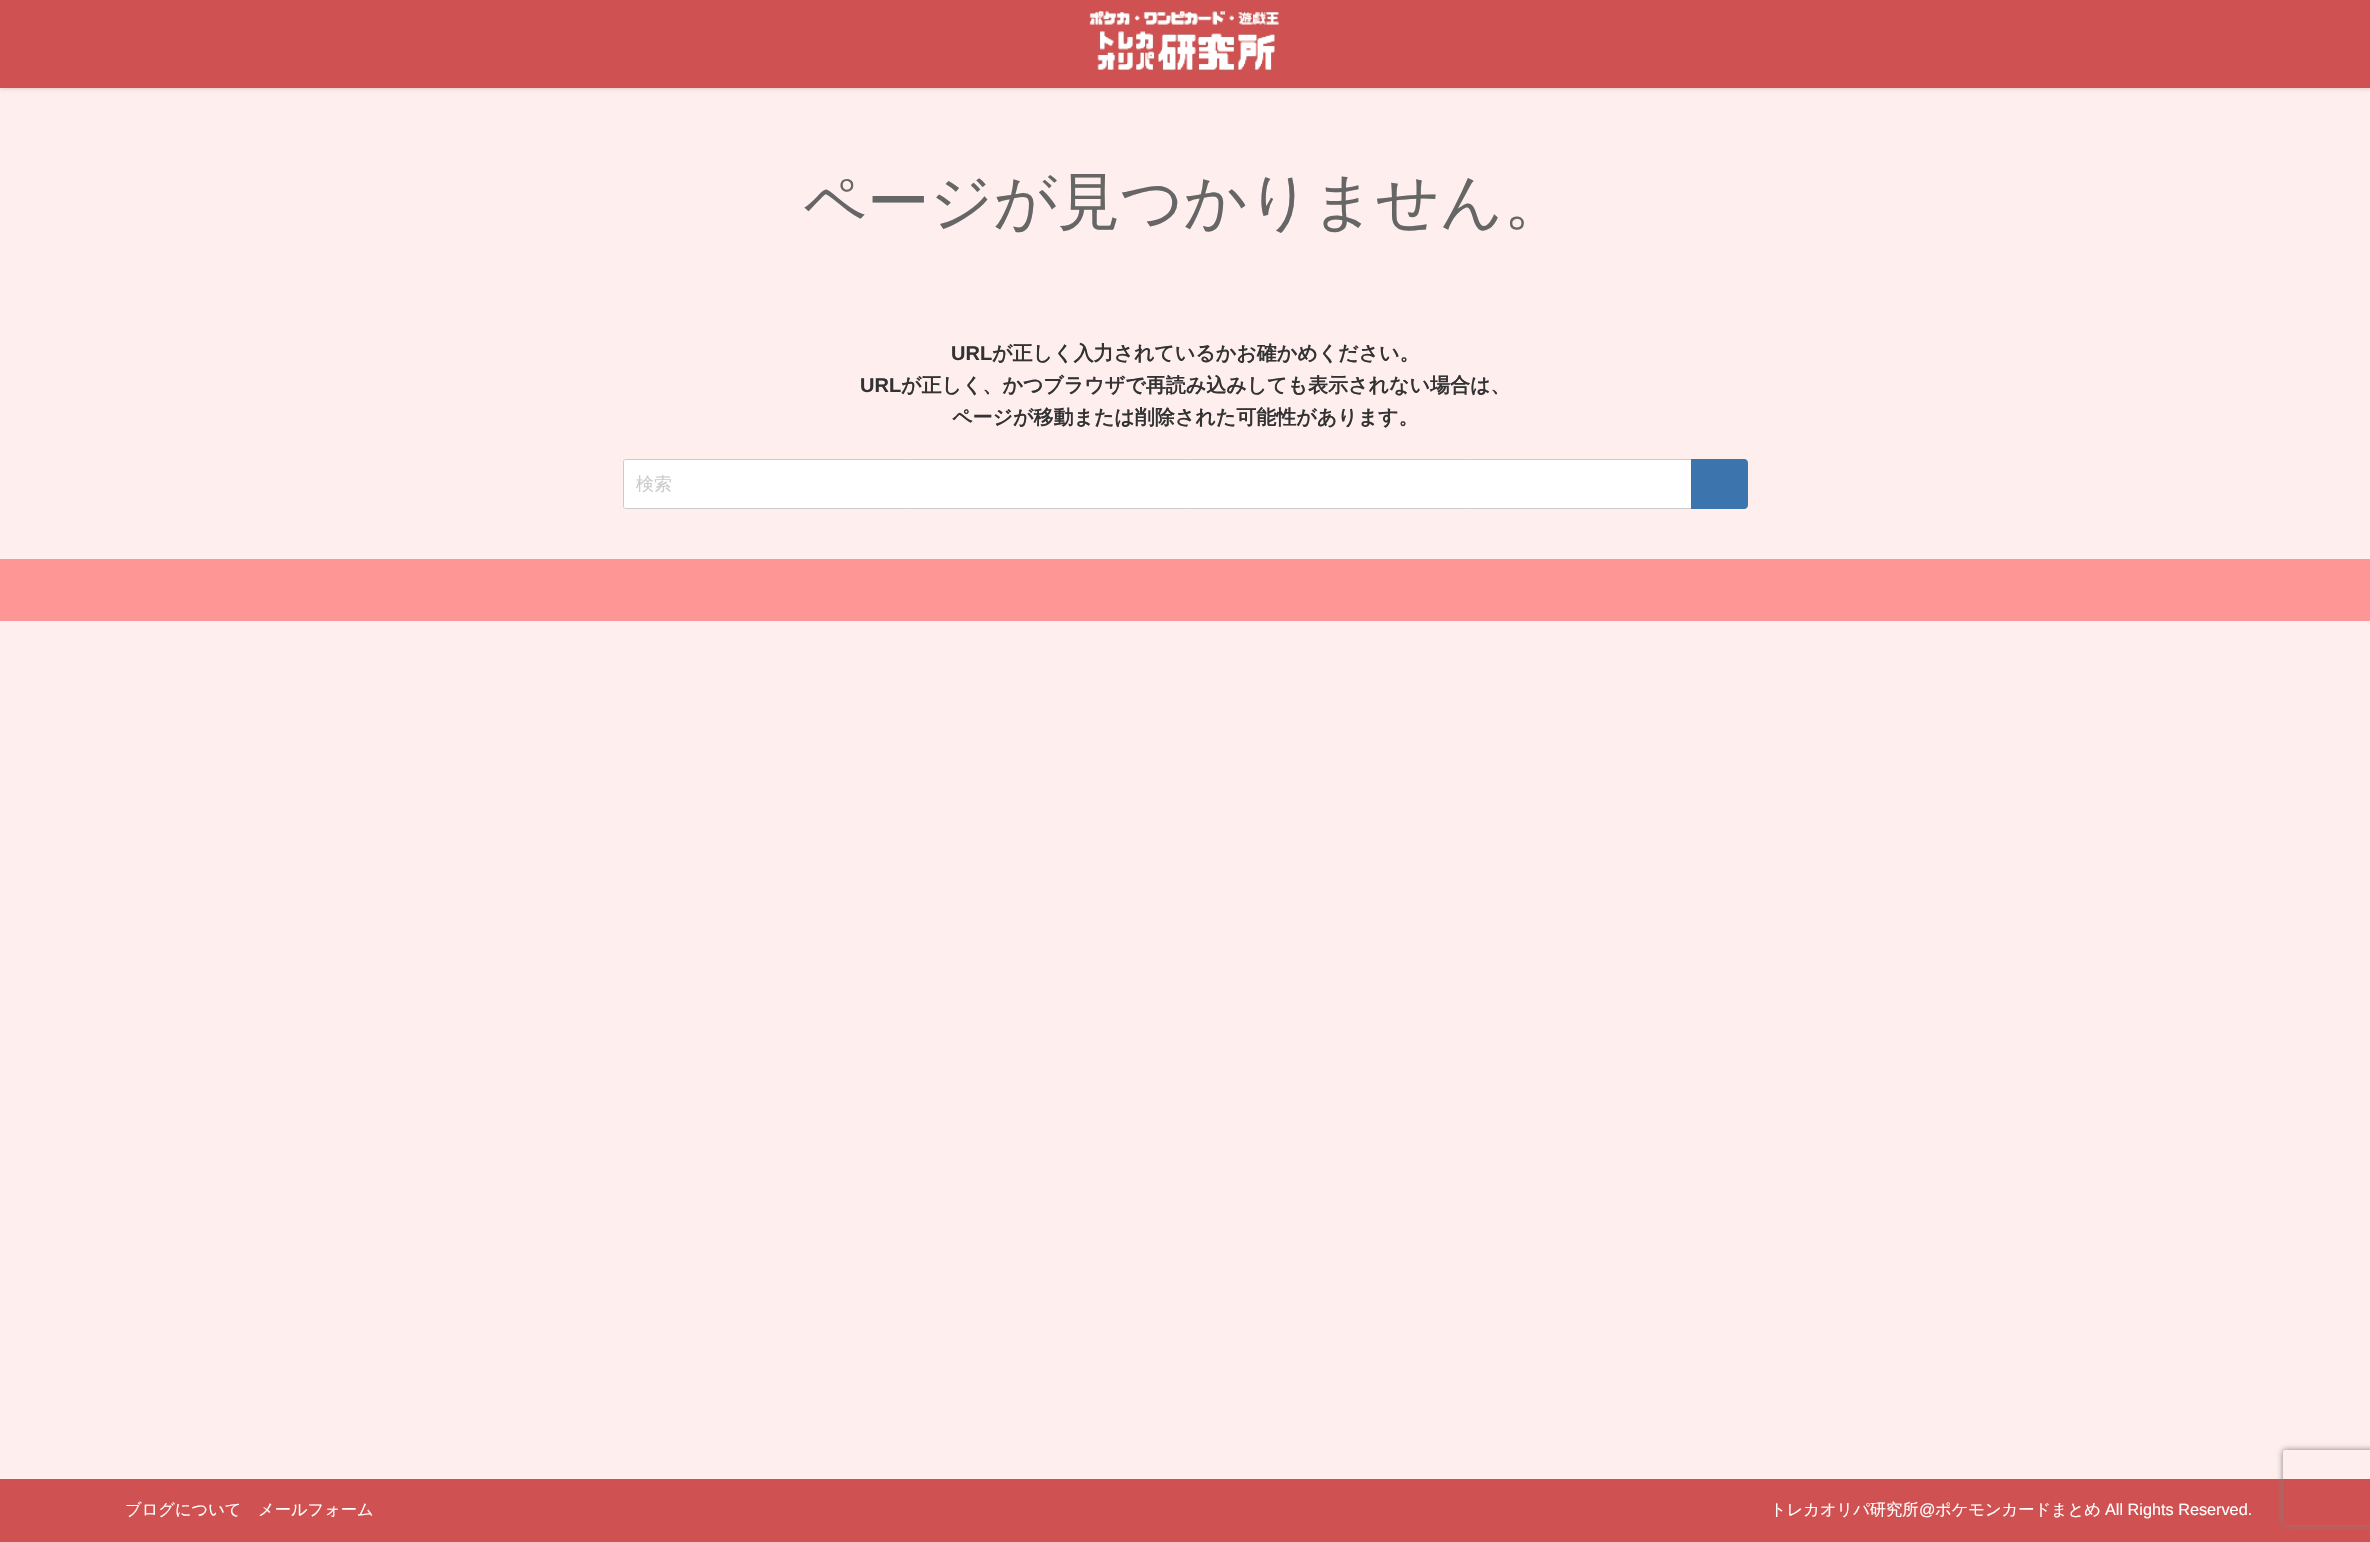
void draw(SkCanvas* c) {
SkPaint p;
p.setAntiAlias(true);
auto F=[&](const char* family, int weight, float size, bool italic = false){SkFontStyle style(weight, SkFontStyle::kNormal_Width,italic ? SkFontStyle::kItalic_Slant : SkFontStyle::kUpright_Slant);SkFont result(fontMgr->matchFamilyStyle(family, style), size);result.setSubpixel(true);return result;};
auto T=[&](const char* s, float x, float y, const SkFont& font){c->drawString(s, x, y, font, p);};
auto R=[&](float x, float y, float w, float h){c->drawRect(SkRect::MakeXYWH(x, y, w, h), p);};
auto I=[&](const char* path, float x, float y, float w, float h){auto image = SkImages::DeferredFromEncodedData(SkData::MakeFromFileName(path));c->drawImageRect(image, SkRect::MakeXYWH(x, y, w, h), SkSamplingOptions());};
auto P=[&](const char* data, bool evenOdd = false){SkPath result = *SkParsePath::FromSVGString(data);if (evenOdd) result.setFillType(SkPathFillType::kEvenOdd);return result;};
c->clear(0xffffeeee);
p.setColor(0x33000000);
p.setMaskFilter(SkMaskFilter::MakeBlur(kNormal_SkBlurStyle, 2.5));
c->drawRect(SkRect::MakeXYWH(0,0,2370,88),p);
p.setMaskFilter(nullptr);
p.setColor(0xffd05151);
R(0,0,2370,88);
I("1.png",1089,11,190,60);
auto f1 = F("WenQuanYi Zen Hei",500,62.5);
p.setColor(0xff666666);
T("ページが見つかりません。",803,223,f1);
auto f2 = F("Liberation Sans",700,20);
p.setColor(0xff333333);
T("URL",951,360,f2);
auto f3 = F("WenQuanYi Zen Hei",700,20);
T("が正しく入力されているかお確かめください。",992,360,f3);
T("URL",860,392,f2);
T("が正しく、かつブラウザで再読み込みしても表示されない場合は、",901,392,f3);
T("ページが移動または削除された可能性があります。",952,424,f3);
p.setColor(0xffffffff);
c->drawRoundRect(SkRect::MakeXYWH(623.5,459.5,1124,49),2,2,p);
p.setStroke(true);
p.setStrokeWidth(1);
p.setColor(0xffcccccc);
c->drawRoundRect(SkRect::MakeXYWH(623.5,459.5,1124,49),2,2,p);
auto f4 = F("WenQuanYi Zen Hei",500,18);
p.setStroke(false);
T("検索",636,490,f4);
p.setColor(0xff3c74ad);
c->drawPath(P("M1691 459h53c2 0 4 2 4 4v42c0 2-2 4-4 4h-53z"),p);
p.setColor(0xffff9696);
R(0,559,2370,62);
p.setColor(0xffd05151);
R(0,1479,2370,63);
auto f5 = F("WenQuanYi Zen Hei",500,16.25);
p.setColor(0xffffffff);
T("ブログについて",125,1515,f5);
T("メールフォーム",258,1515,f5);
T("トレカオリパ研究所",1770,1515,f5);
auto f6 = F("Liberation Sans",400,16.25);
T("@",1919,1515,f6);
T("ポケモンカードまとめ",1935,1515,f5);
T("All Rights Reserved.",2105,1515,f6);
c->save();
c->clipPath(P("M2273 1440h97v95h-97zm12.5 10h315c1.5 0 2.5 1 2.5 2.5v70c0 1.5-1 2.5-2.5 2.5h-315c-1.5 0-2.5-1-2.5-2.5v-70c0-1.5 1-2.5 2.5-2.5z",true),true);
p.setColor(0xff808080);
p.setMaskFilter(SkMaskFilter::MakeBlur(kNormal_SkBlurStyle, 3));
c->drawRoundRect(SkRect::MakeXYWH(2283,1450,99,75),2.5,2.5,p);
p.setMaskFilter(nullptr);
c->restore();
}
